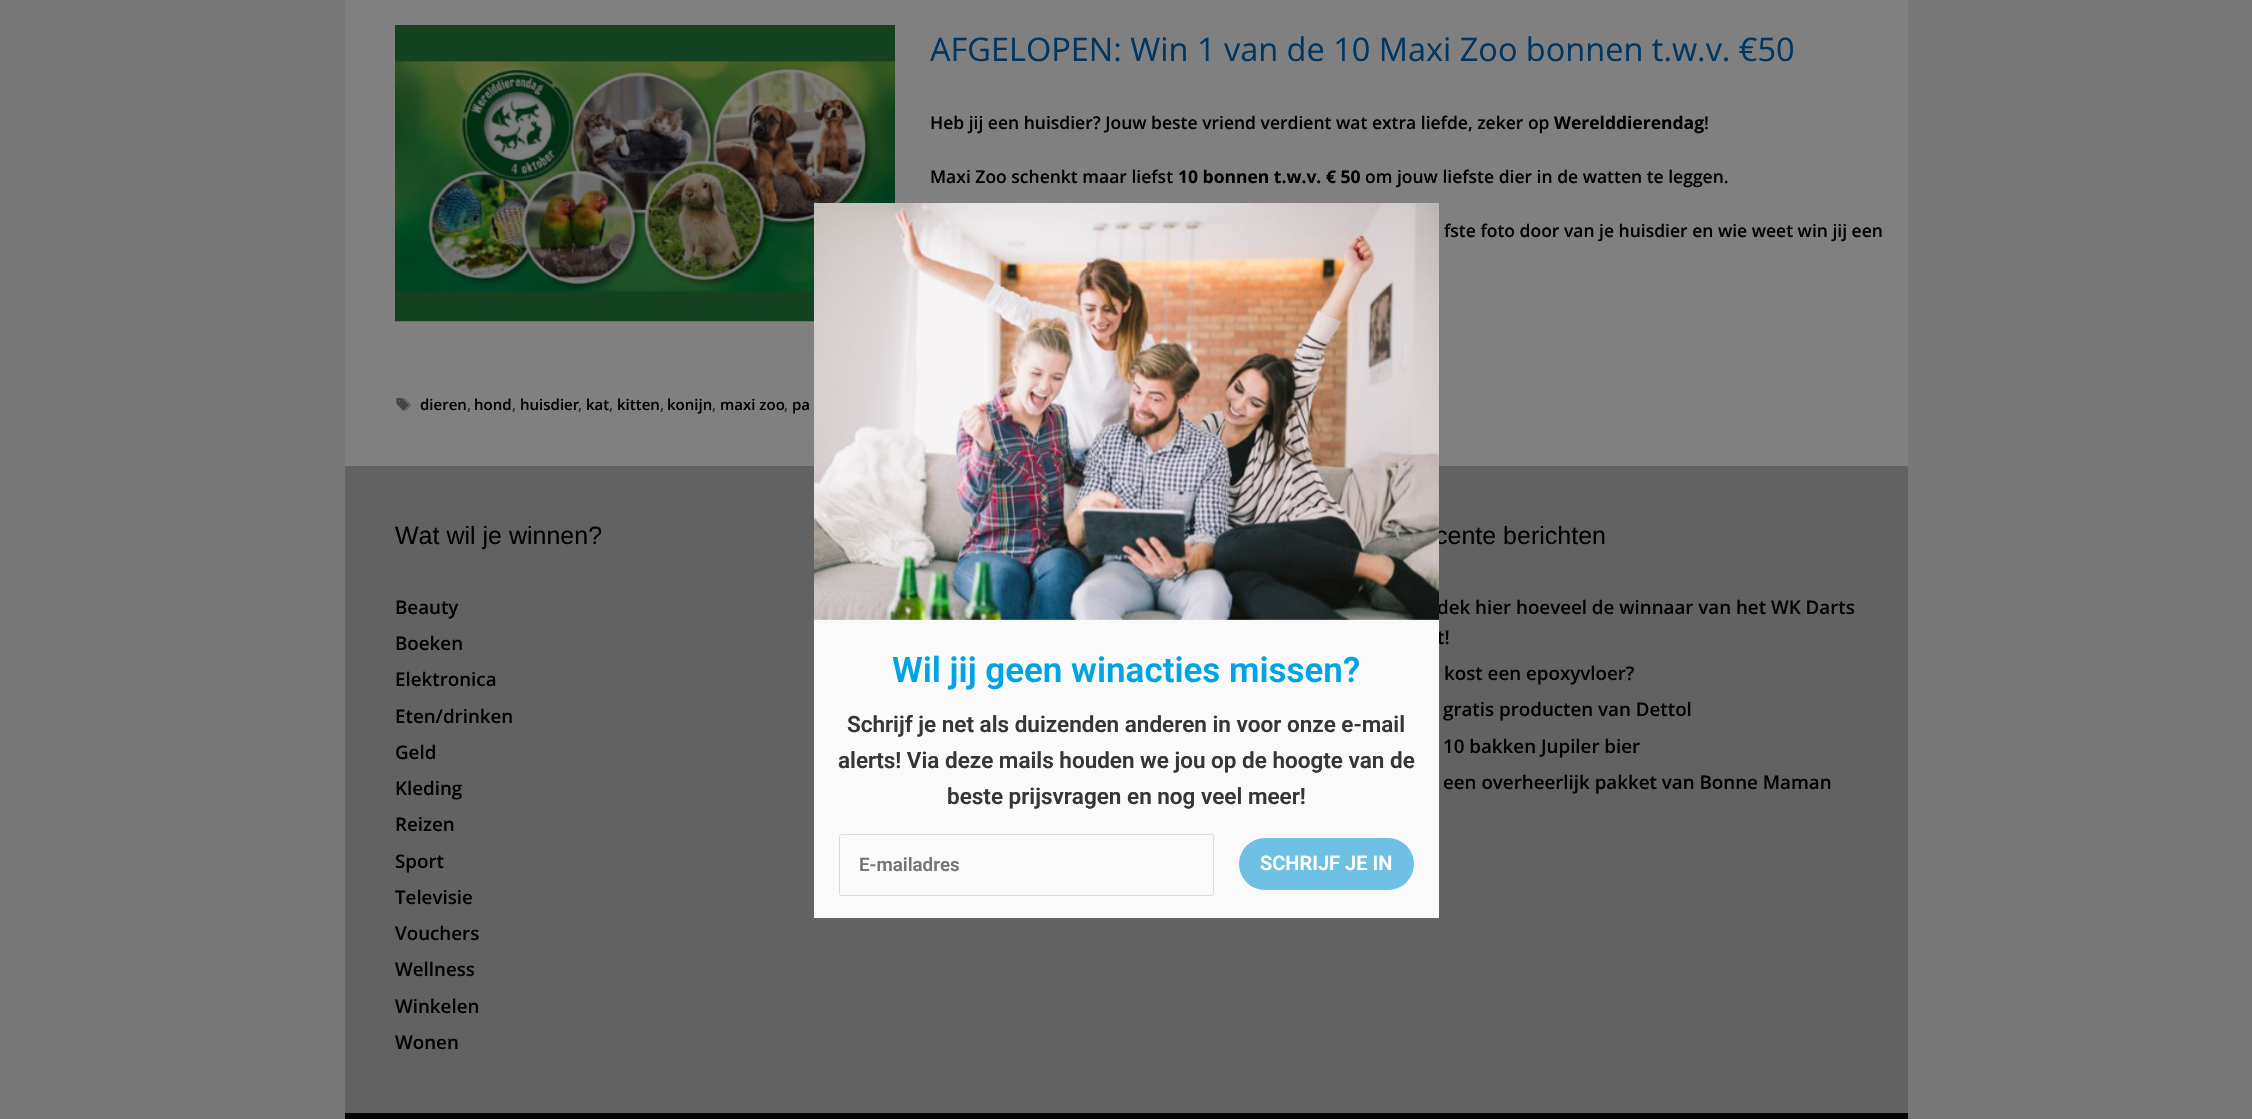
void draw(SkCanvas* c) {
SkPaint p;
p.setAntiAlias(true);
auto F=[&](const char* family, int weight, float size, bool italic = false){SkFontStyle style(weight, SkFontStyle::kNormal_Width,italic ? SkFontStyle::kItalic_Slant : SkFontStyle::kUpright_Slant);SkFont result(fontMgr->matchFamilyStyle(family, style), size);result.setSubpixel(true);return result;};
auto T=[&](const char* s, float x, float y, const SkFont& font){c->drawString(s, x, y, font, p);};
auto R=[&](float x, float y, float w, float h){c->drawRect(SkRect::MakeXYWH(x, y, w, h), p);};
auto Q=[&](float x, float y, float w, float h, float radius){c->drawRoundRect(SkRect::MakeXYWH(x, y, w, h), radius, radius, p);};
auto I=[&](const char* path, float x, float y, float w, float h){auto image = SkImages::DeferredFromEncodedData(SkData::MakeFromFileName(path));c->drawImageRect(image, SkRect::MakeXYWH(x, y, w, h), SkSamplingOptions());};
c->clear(0xff787878);
p.setColor(0xff808080);
R(345,0,1563,466);
I("1.png",395,25,500,297);
auto f1 = F("Open Sans",400,32.5);
p.setColor(0xff013661);
T("AFGELOPEN: Win 1 van de 10 Maxi Zoo bonnen t.w.v. €50",930,61,f1);
auto f2 = F("Open Sans",600,17.5);
p.setColor(0xff050001);
T("Heb jij een huisdier? Jouw beste vriend verdient wat extra liefde, zeker op",930,129,f2);
auto f3 = F("Open Sans",700,17.5);
T("Werelddierendag",1554,129,f3);
T("!",1704,129,f2);
T("Maxi Zoo schenkt maar liefst",930,183,f2);
T("10 bonnen t.w.v. € 50",1178,183,f3);
T("om jouw liefste dier in de watten te leggen.",1365,183,f2);
T("fste foto door van je huisdier en wie weet win jij een",1444,237,f2);
I("2.png",396,398,15,13);
auto f4 = F("Open Sans",600,15);
T("dieren",420,410,f4);
p.setColor(0xff2d2d2d);
T(",",467,410,f4);
p.setColor(0xff050001);
T("hond",474,410,f4);
p.setColor(0xff2d2d2d);
T(",",512,410,f4);
p.setColor(0xff050001);
T("huisdier",520,410,f4);
p.setColor(0xff2d2d2d);
T(",",578,410,f4);
p.setColor(0xff050001);
T("kat",586,410,f4);
p.setColor(0xff2d2d2d);
T(",",609,410,f4);
p.setColor(0xff050001);
T("kitten",617,410,f4);
p.setColor(0xff2d2d2d);
T(",",660,410,f4);
p.setColor(0xff050001);
T("konijn",667,410,f4);
p.setColor(0xff2d2d2d);
T(",",712,410,f4);
p.setColor(0xff050001);
T("maxi zoo",720,410,f4);
p.setColor(0xff2d2d2d);
T(",",784,410,f4);
p.setColor(0xff050001);
T("pa",792,410,f4);
p.setColor(0xff626262);
R(345,466,1563,647);
auto f5 = F("Liberation Sans",400,25);
p.setColor(0xff050001);
T("Wat wil je winnen?",395,544,f5);
auto f6 = F("Open Sans",600,18.75);
T("Beauty",395,614,f6);
T("Boeken",395,650,f6);
T("Elektronica",395,686,f6);
T("Eten/drinken",395,723,f6);
T("Geld",395,759,f6);
T("Kleding",395,795,f6);
T("Reizen",395,831,f6);
T("Sport",395,868,f6);
T("Televisie",395,904,f6);
T("Vouchers",395,940,f6);
T("Wellness",395,976,f6);
T("Winkelen",395,1013,f6);
T("Wonen",395,1049,f6);
T("cente berichten",1435,544,f5);
T("dek hier hoeveel de winnaar van het WK Darts",1437,614,f6);
T("t!",1437,644,f6);
T("kost een epoxyvloer?",1444,680,f6);
T("gratis producten van Dettol",1443,716,f6);
T("10 bakken Jupiler bier",1443,753,f6);
T("een overheerlijk pakket van Bonne Maman",1443,789,f6);
p.setColor(0xff050505);
R(345,1113,1563,6);
p.setColor(0xfffafafa);
R(814,619,625,299);
I("3.png",814,203,625,417);
auto f7 = F("Roboto",600,35);
p.setColor(0xff00a4e4);
T("Wil jij geen winacties missen?",892,682,f7);
auto f8 = F("Roboto",600,22.5);
p.setColor(0xff363636);
T("Schrijf je net als duizenden anderen in voor onze e-mail",847,732,f8);
T("alerts! Via deze mails houden we jou op de hoogte van de",838,768,f8);
T("beste prijsvragen en nog veel meer!",947,804,f8);
p.setStroke(true);
p.setStrokeWidth(1);
p.setColor(0xffdbdbdb);
c->drawRoundRect(SkRect::MakeXYWH(839.5,834.5,374,61),2,2,p);
auto f9 = F("Roboto",600,18.75);
p.setStroke(false);
p.setColor(0xff757575);
T("E-mailadres",859,871,f9);
p.setColor(0xff6ec0e5);
Q(1239,838,175,52,26);
auto f10 = F("Roboto",600,20);
p.setColor(0xffffffff);
T("SCHRIJF JE IN",1260,870,f10);
}
